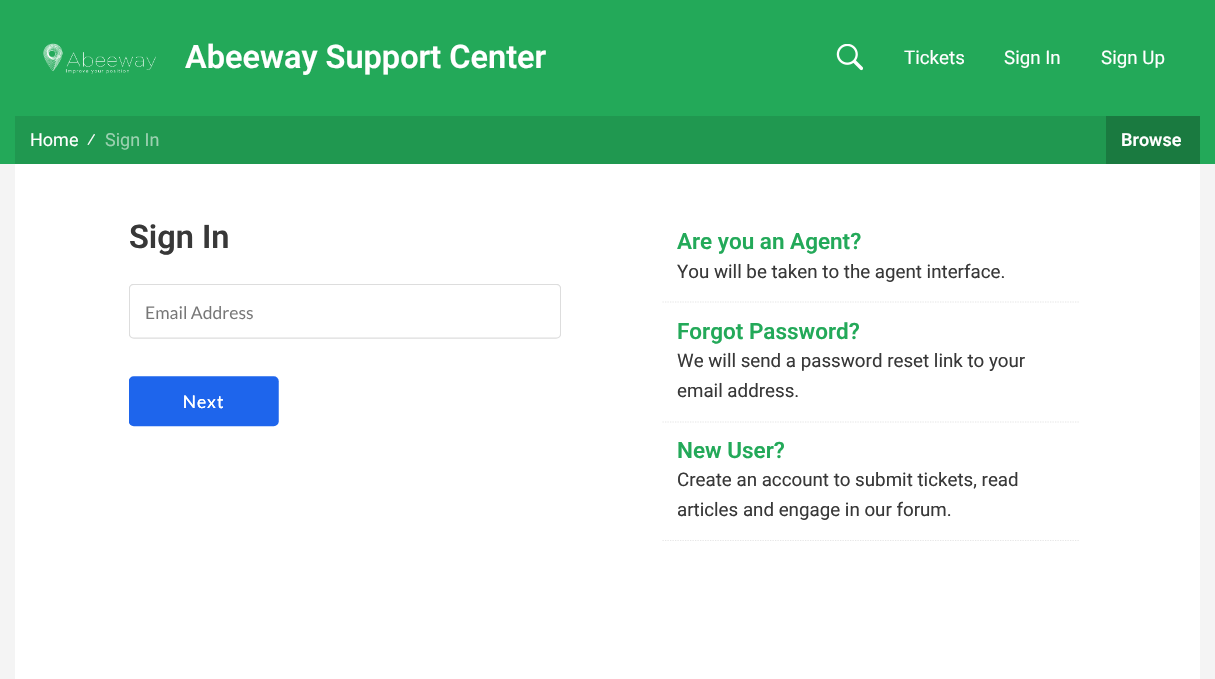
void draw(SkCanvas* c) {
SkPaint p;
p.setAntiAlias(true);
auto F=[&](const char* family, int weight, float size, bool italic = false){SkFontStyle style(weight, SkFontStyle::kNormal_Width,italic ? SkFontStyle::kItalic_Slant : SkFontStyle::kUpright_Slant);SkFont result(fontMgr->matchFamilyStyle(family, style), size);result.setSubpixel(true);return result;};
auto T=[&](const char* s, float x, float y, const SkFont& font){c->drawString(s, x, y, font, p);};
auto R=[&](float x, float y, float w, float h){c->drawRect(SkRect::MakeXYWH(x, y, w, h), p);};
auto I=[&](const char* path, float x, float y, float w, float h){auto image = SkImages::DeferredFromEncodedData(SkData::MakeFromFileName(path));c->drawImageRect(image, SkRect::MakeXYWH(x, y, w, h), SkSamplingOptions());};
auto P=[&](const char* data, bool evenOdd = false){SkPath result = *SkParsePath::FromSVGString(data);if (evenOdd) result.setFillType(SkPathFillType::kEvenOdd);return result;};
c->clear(0xfff4f4f4);
p.setColor(0xff23a959);
R(0,0,1215,164);
I("1.png",43,43,113,31);
auto f1 = F("Roboto",600,32.5);
p.setColor(0xffffffff);
T("Abeeway Support Center",185,68,f1);
I("2.png",836,44,27,27);
auto f2 = F("Roboto",400,18.75);
T("Tickets",904,64,f2);
T("Sign In",1004,64,f2);
T("Sign Up",1101,64,f2);
p.setColor(0xff209850);
R(15,116,1091,48);
auto f3 = F("Roboto",400,18);
p.setColor(0xffffffff);
T("Home",30,146,f3);
T("⁄",87,146,f2);
p.setColor(0xff9bd1b0);
T("Sign In",105,146,f3);
p.setColor(0xff1a7a40);
R(1106,116,94,48);
auto f4 = F("Roboto",600,18);
p.setColor(0xffffffff);
T("Browse",1121,146,f4);
R(15,164,1185,515);
p.setColor(0xff383838);
T("Sign In",129,248,f1);
I("3.png",129,284,432,143);
p.setStroke(true);
p.setStrokeWidth(1.2);
p.setColor(0xffe6e6e6);
p.setPathEffect(SkDashPathEffect::Make({{1.25f,1.25f}}, 0));
c->drawPath(P("M662.5 302h416.5"),p);
p.setPathEffect(nullptr);
auto f5 = F("Roboto",600,22.5);
p.setStroke(false);
p.setColor(0xff23a959);
T("Are you an Agent?",677,249,f5);
p.setColor(0xff383838);
T("You will be taken to the agent interface.",677,278,f2);
p.setStroke(true);
p.setColor(0xffe6e6e6);
p.setPathEffect(SkDashPathEffect::Make({{1.25f,1.25f}}, 0));
c->drawPath(P("M662.5 422h416.5"),p);
p.setPathEffect(nullptr);
p.setStroke(false);
p.setColor(0xff23a959);
T("Forgot Password?",677,339,f5);
p.setColor(0xff383838);
T("We will send a password reset link to your",677,367,f2);
T("email address.",677,397,f2);
p.setStroke(true);
p.setColor(0xffe6e6e6);
p.setPathEffect(SkDashPathEffect::Make({{1.25f,1.25f}}, 0));
c->drawPath(P("M662.5 540.5h416.5"),p);
p.setPathEffect(nullptr);
p.setStroke(false);
p.setColor(0xff23a959);
T("New User?",677,458,f5);
p.setColor(0xff383838);
T("Create an account to submit tickets, read",677,486,f2);
T("articles and engage in our forum.",677,516,f2);
}
